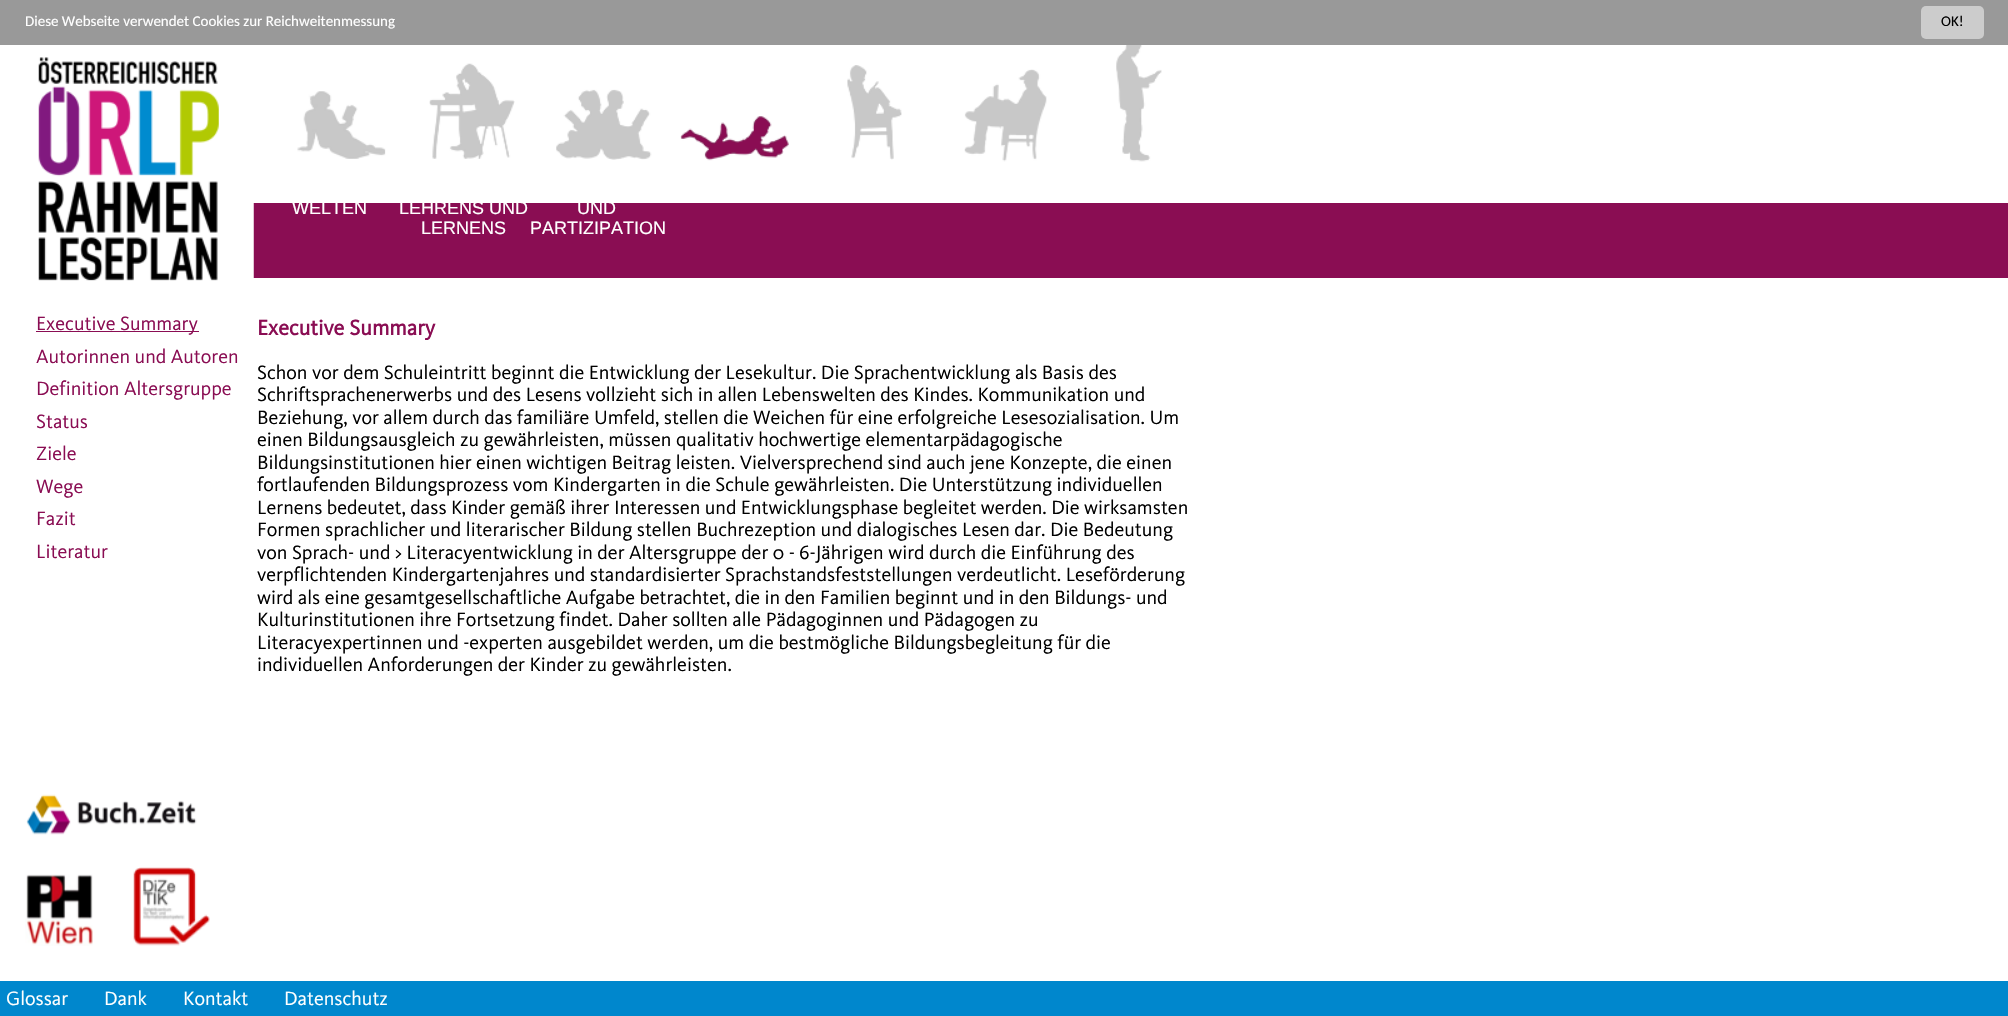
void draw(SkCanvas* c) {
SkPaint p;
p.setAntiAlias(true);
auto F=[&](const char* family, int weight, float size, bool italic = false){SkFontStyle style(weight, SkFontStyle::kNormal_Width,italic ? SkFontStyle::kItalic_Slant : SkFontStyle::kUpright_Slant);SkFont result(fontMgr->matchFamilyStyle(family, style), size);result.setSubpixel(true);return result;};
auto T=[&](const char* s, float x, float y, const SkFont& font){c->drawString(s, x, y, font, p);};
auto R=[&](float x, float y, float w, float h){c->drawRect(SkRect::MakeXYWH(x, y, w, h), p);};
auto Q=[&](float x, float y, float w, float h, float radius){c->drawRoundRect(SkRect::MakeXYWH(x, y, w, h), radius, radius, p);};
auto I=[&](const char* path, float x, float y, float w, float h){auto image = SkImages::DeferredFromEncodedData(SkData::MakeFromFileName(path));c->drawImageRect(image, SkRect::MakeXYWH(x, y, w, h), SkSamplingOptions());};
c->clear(0xffffffff);
p.setColor(0xff999999);
R(0,0,2008,45);
auto f1 = F("Carlito",400,15);
p.setColor(0xffffffff);
T("Diese Webseite verwendet Cookies zur Reichweitenmessung",25,26,f1);
p.setColor(0xffcccccc);
Q(1921,6,63,33,5);
p.setColor(0xff000000);
T("OK!",1941,26,f1);
p.setColor(0xff8a0d53);
R(253,203,1755,75);
I("1.png",0,57,254,224);
I("2.png",680,116,109,45);
I("3.png",847,65,55,95);
I("4.png",964,69,83,93);
I("5.png",1116,45,46,117);
I("6.png",297,91,89,68);
auto f2 = F("Liberation Sans",400,18);
p.setColor(0xffffffff);
T("WELTEN",292,214,f2);
I("7.png",429,63,86,96);
T("LEHRENS UND",399,214,f2);
T("LERNENS",421,234,f2);
I("8.png",556,89,96,71);
T("UND",577,214,f2);
T("PARTIZIPATION",530,234,f2);
p.setColor(0xff8a0d53);
R(36,331,163,1);
auto f3 = F("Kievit",400,20);
T("Executive Summary",36,330,f3);
T("Autorinnen und Autoren",36,363,f3);
T("Definition Altersgruppe",36,395,f3);
T("Status",36,428,f3);
T("Ziele",36,460,f3);
T("Wege",36,493,f3);
T("Fazit",36,525,f3);
T("Literatur",36,558,f3);
auto f4 = F("Kievit",700,22);
T("Executive Summary",257,335,f4);
p.setColor(0xff000000);
T("Schon vor dem Schuleintritt beginnt die Entwicklung der Lesekultur. Die Sprachentwicklung als Basis des",257,379,f3);
T("Schriftsprachenerwerbs und des Lesens vollzieht sich in allen Lebenswelten des Kindes. Kommunikation und",257,401,f3);
T("Beziehung, vor allem durch das familiäre Umfeld, stellen die Weichen für eine erfolgreiche Lesesozialisation. Um",257,424,f3);
T("einen Bildungsausgleich zu gewährleisten, müssen qualitativ hochwertige elementarpädagogische",257,446,f3);
T("Bildungsinstitutionen hier einen wichtigen Beitrag leisten. Vielversprechend sind auch jene Konzepte, die einen",257,469,f3);
T("fortlaufenden Bildungsprozess vom Kindergarten in die Schule gewährleisten. Die Unterstützung individuellen",257,491,f3);
T("Lernens bedeutet, dass Kinder gemäß ihrer Interessen und Entwicklungsphase begleitet werden. Die wirksamsten",257,514,f3);
T("Formen sprachlicher und literarischer Bildung stellen Buchrezeption und dialogisches Lesen dar. Die Bedeutung",257,536,f3);
T("von Sprach- und > Literacyentwicklung in der Altersgruppe der 0 - 6-Jährigen wird durch die Einführung des",257,559,f3);
T("verpflichtenden Kindergartenjahres und standardisierter Sprachstandsfeststellungen verdeutlicht. Leseförderung",257,581,f3);
T("wird als eine gesamtgesellschaftliche Aufgabe betrachtet, die in den Familien beginnt und in den Bildungs- und",257,604,f3);
T("Kulturinstitutionen ihre Fortsetzung findet. Daher sollten alle Pädagoginnen und Pädagogen zu",257,626,f3);
T("Literacyexpertinnen und -experten ausgebildet werden, um die bestmögliche Bildungsbegleitung für die",257,649,f3);
T("individuellen Anforderungen der Kinder zu gewährleisten.",257,671,f3);
I("9.png",26,794,171,41);
I("10.png",25,874,68,72);
I("11.png",133,867,77,79);
p.setColor(0xff0087cd);
R(0,981,2008,35);
p.setColor(0xffffffff);
T("Glossar",6,1005,f3);
T("Dank",104,1005,f3);
T("Kontakt",183,1005,f3);
T("Datenschutz",284,1005,f3);
}
